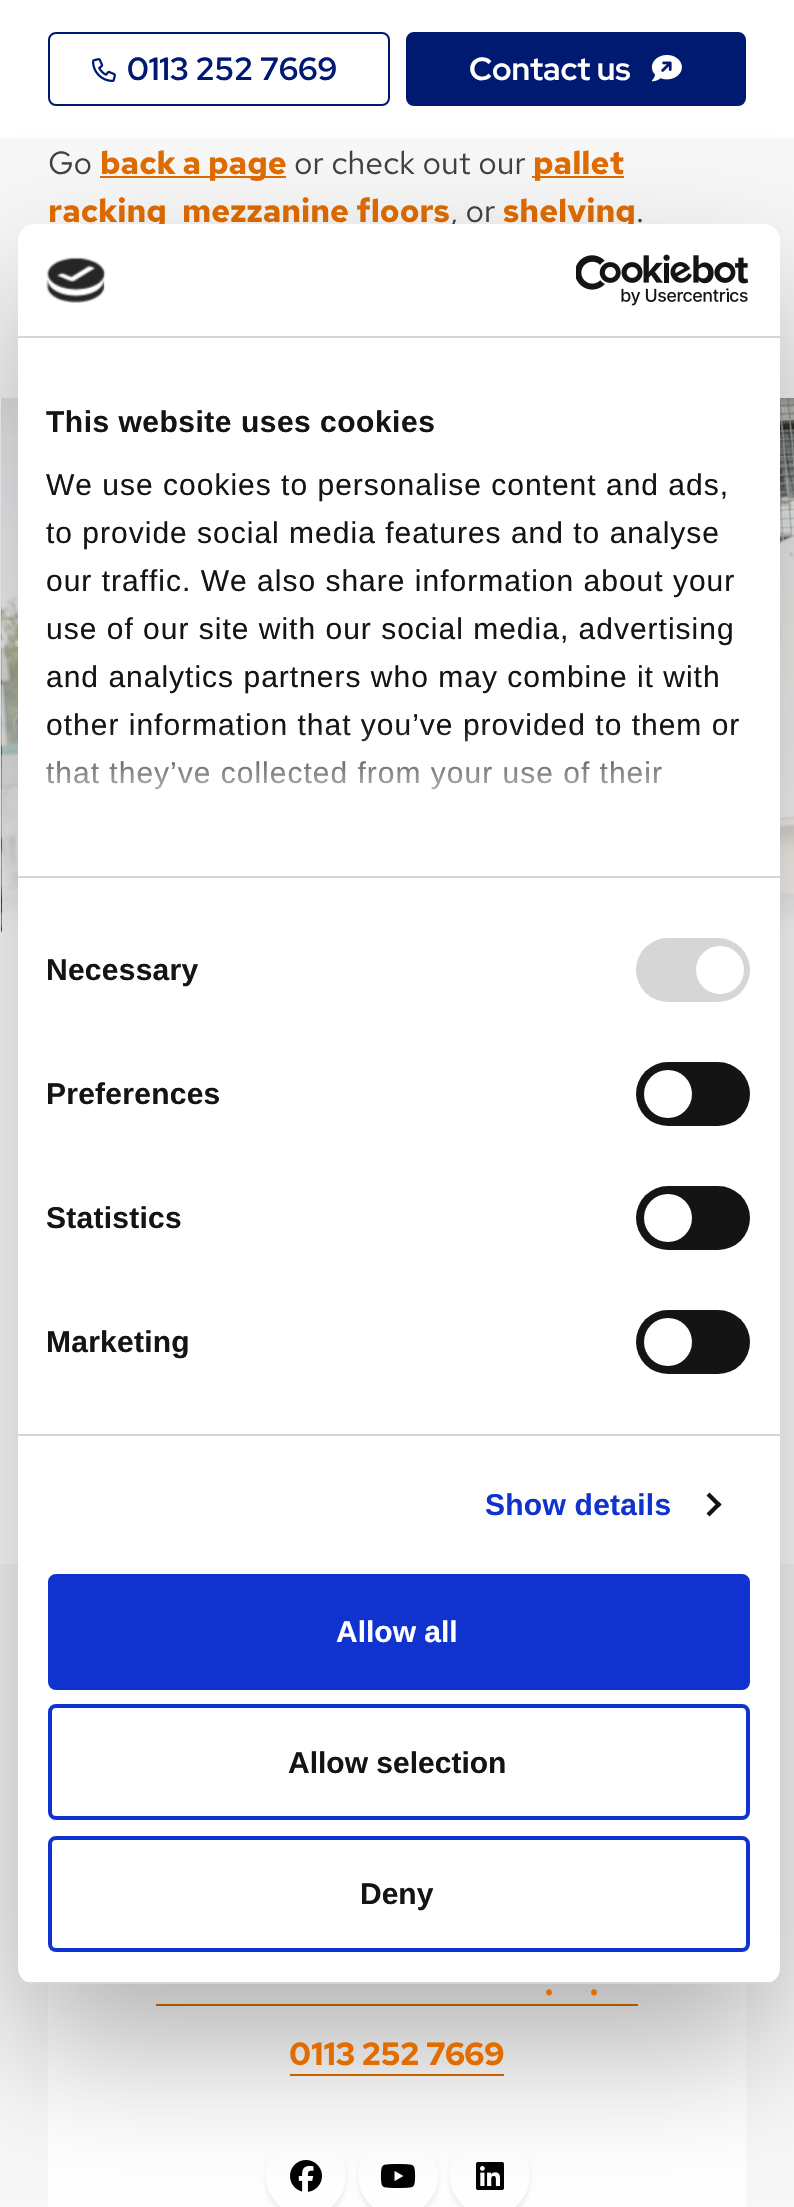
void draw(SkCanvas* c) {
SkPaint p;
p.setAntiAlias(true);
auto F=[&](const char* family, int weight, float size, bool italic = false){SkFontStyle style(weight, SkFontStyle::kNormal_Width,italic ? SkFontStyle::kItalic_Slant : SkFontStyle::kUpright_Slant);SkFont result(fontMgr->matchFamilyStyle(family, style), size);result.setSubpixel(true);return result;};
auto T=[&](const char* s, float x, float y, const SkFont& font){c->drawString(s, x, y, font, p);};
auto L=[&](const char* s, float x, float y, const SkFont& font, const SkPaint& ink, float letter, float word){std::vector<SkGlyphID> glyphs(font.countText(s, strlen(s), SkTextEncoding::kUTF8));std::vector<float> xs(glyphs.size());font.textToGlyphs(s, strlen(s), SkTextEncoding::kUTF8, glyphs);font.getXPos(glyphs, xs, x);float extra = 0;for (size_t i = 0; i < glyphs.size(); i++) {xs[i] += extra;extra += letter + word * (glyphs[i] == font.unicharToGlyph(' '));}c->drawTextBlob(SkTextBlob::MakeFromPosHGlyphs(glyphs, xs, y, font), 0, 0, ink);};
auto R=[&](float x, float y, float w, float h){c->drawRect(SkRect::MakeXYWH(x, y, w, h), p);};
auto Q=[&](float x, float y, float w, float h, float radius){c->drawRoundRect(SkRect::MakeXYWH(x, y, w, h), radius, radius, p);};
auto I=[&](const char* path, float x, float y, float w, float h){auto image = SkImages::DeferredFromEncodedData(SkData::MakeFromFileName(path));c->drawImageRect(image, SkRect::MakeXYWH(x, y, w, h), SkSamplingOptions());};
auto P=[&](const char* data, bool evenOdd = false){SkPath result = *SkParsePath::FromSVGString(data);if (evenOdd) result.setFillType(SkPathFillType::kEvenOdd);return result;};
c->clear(0xfff8f8f8);
p.setColor(0xffffffff);
R(0,0,794,138);
p.setStroke(true);
p.setStrokeWidth(2);
p.setColor(0xff001971);
c->drawRoundRect(SkRect::MakeXYWH(49,33,340,72),7,7,p);
I("1.png",92,58,24,24);
auto f1 = F("Red Hat Display",700,32);
p.setStroke(false);
T("0113 252 7669",127,80,f1);
c->drawRoundRect(SkRect::MakeXYWH(407,33,338,72),7,7,p);
p.setStroke(true);
c->drawRoundRect(SkRect::MakeXYWH(407,33,338,72),7,7,p);
p.setStroke(false);
p.setColor(0xffffffff);
T("Contact us",469,80,f1);
I("2.png",651,54,31,28);
auto f2 = F("Red Hat Text",400,32);
p.setColor(0xff424242);
T("Go",48,174,f2);
p.setColor(0xffe16c00);
R(100,176,186,2);
auto f3 = F("Red Hat Text",700,32);
T("back a page",100,174,f3);
p.setColor(0xff424242);
T("or check out our",294,174,f2);
p.setColor(0xffe16c00);
R(532,176,92,2);
T("pallet",533,174,f3);
T("racking",48,222,f3);
T("mezzanine floors",182,222,f3);
p.setColor(0xff424242);
T(", or",450,222,f2);
p.setColor(0xffe16c00);
T("shelving",503,222,f3);
p.setColor(0xff424242);
T(".",636,222,f2);
p.setColor(0xffffffff);
R(0,398,794,1166);
I("3.png",1,398,793,534);
R(48,1984,698,223);
p.setColor(0xffe16c00);
R(156,2004,482,2);
R(290,2074,214,2);
c->save();
c->clipPath(P("M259 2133h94v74h-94zm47 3c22 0 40 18 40 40c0 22-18 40-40 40c-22 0-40-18-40-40c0-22 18-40 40-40z",true),true);
p.setColor(0x14000000);
p.setMaskFilter(SkMaskFilter::MakeBlur(kNormal_SkBlurStyle, 2));
c->drawRoundRect(SkRect::MakeXYWH(266,2140,80,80),40,40,p);
p.setMaskFilter(nullptr);
c->restore();
I("6.png",290,2160,32,32);
c->save();
c->clipPath(P("M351 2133h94v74h-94zm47 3c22 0 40 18 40 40c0 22-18 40-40 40c-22 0-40-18-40-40c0-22 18-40 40-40z",true),true);
p.setMaskFilter(SkMaskFilter::MakeBlur(kNormal_SkBlurStyle, 2));
c->drawRoundRect(SkRect::MakeXYWH(358,2140,80,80),40,40,p);
p.setMaskFilter(nullptr);
c->restore();
I("7.png",380,2164,36,24);
c->save();
c->clipPath(P("M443 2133h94v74h-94zm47 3c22 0 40 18 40 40c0 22-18 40-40 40c-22 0-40-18-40-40c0-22 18-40 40-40z",true),true);
p.setMaskFilter(SkMaskFilter::MakeBlur(kNormal_SkBlurStyle, 2));
c->drawRoundRect(SkRect::MakeXYWH(450,2140,80,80),40,40,p);
p.setMaskFilter(nullptr);
c->restore();
I("8.png",476,2162,28,28);
p.setColor(0x4d000000);
p.setMaskFilter(SkMaskFilter::MakeBlur(kNormal_SkBlurStyle, 68));
c->drawRoundRect(SkRect::MakeXYWH(18,288,762,1760),16,16,p);
p.setMaskFilter(nullptr);
p.setColor(0xffffffff);
Q(18,224,762,1760,16);
p.setColor(0xffd6d6d6);
R(18,336,762,2);
I("4.png",46,257,60,46);
I("5.png",576,254,173,52);
R(18,876,762,2);
auto f4 = F("Liberation Sans",700,30);
p.setColor(0xff141414);
L("This website uses cookies",46,432,f4,p,.5,0);
auto f5 = F("Liberation Sans",400,30);
L("We use cookies to personalise content and ads,",46,495,f5,p,1,0);
L("to provide social media features and to analyse",46,543,f5,p,1,0);
L("our traffic. We also share information about your",46,591,f5,p,1,0);
L("use of our site with our social media, advertising",46,639,f5,p,1,0);
L("and analytics partners who may combine it with",46,687,f5,p,1,0);
L("other information that you’ve provided to them or",46,735,f5,p,1,0);
L("that they’ve collected from your use of their",46,783,f5,p,1,0);
{
const SkColor colors[] = {0xffffffff,0xccffffff,0x00ffffff};
const float stops[] = {0,.5,1};
const SkPoint ends[] = {{385,877}, {385,727}};
p.setShader(SkGradientShader::MakeLinear(ends, colors, stops, 3, SkTileMode::kClamp));
p.setAlpha(255);
}
R(46,729,688,61);
p.setShader(nullptr);
p.setColor(0xffd6d6d6);
R(18,1434,762,2);
p.setColor(0xff141414);
L("Necessary",46,980,f4,p,.25,0);
p.setColor(0xffd6d6d6);
Q(636,938,114,64,32);
p.setColor(0xffffffff);
c->drawCircle(720,970,24,p);
p.setColor(0xff141414);
L("Preferences",46,1104,f4,p,.25,0);
Q(636,1062,114,64,32);
p.setColor(0xffffffff);
c->drawCircle(668,1094,24,p);
p.setColor(0xff141414);
L("Statistics",46,1228,f4,p,.25,0);
Q(636,1186,114,64,32);
p.setColor(0xffffffff);
c->drawCircle(668,1218,24,p);
p.setColor(0xff141414);
L("Marketing",46,1352,f4,p,.25,0);
Q(636,1310,114,64,32);
p.setColor(0xffffffff);
c->drawCircle(668,1342,24,p);
p.setColor(0xff1032cf);
L("Show details",485,1515,f4,p,.25,0);
p.setColor(0xff141414);
c->drawPath(P("M709.5 1492.5l12 12l-3 3l-12-12z"),p);
c->drawPath(P("M718.5 1501.5l3 3l-12 12l-3-3z"),p);
c->save();
c->clipPath(P("M34 224h730c9 0 16 7 16 16v1728c0 9-7 16-16 16h-730c-9 0-16-7-16-16v-1728c0-9 7-16 16-16z"),true);
p.setColor(0xffd6d6d6);
R(18,1982,762,2);
c->restore();
p.setColor(0xff1032cf);
c->drawRoundRect(SkRect::MakeXYWH(50,1576,698,112),6,6,p);
p.setStroke(true);
p.setStrokeWidth(4);
c->drawRoundRect(SkRect::MakeXYWH(50,1576,698,112),6,6,p);
p.setStroke(false);
p.setColor(0xffffffff);
T("Allow all",336,1642,f4);
p.setStroke(true);
p.setColor(0xff1032cf);
c->drawRoundRect(SkRect::MakeXYWH(50,1706,698,112),6,6,p);
p.setStroke(false);
p.setColor(0xff141414);
T("Allow selection",288,1773,f4);
p.setStroke(true);
p.setColor(0xff1032cf);
c->drawRoundRect(SkRect::MakeXYWH(50,1838,698,112),6,6,p);
p.setStroke(false);
p.setColor(0xff141414);
T("Deny",360,1904,f4);
p.setColor(0xffe16c00);
T(".",545,1995,f3);
T(".",590,1995,f3);
T("0113 252 7669",289,2065,f3);
}
